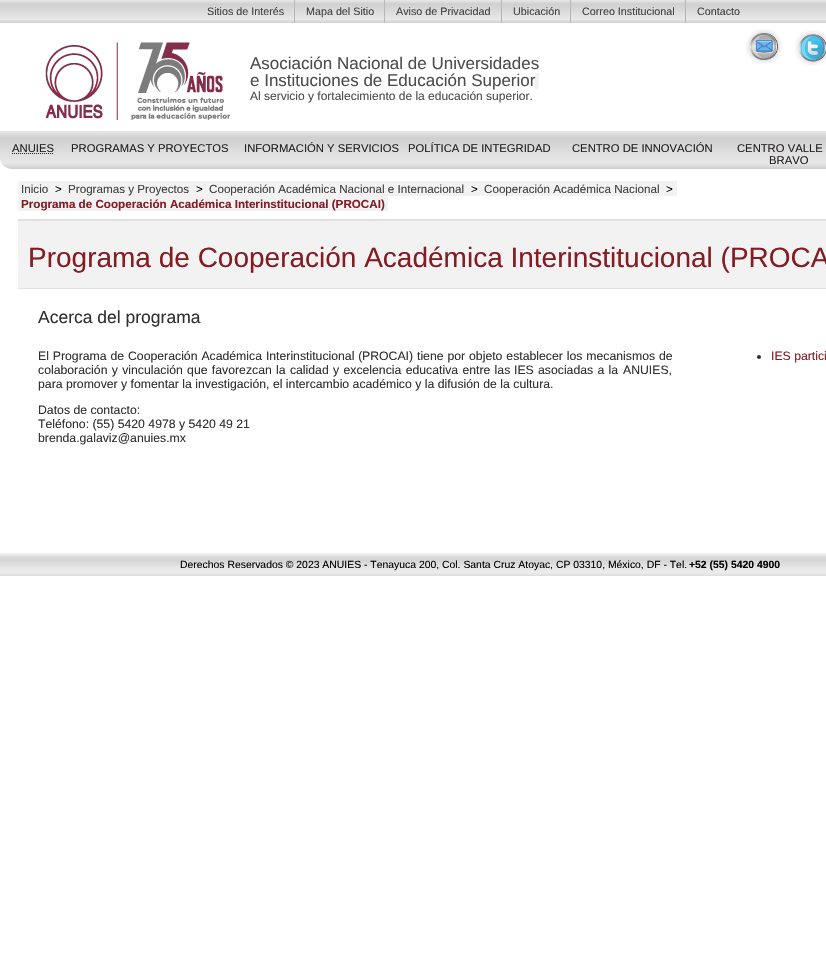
void draw(SkCanvas* c) {
SkPaint p;
p.setAntiAlias(true);
auto F=[&](const char* family, int weight, float size, bool italic = false){SkFontStyle style(weight, SkFontStyle::kNormal_Width,italic ? SkFontStyle::kItalic_Slant : SkFontStyle::kUpright_Slant);SkFont result(fontMgr->matchFamilyStyle(family, style), size);result.setSubpixel(true);return result;};
auto T=[&](const char* s, float x, float y, const SkFont& font){c->drawString(s, x, y, font, p);};
auto L=[&](const char* s, float x, float y, const SkFont& font, const SkPaint& ink, float letter, float word){std::vector<SkGlyphID> glyphs(font.countText(s, strlen(s), SkTextEncoding::kUTF8));std::vector<float> xs(glyphs.size());font.textToGlyphs(s, strlen(s), SkTextEncoding::kUTF8, glyphs);font.getXPos(glyphs, xs, x);float extra = 0;for (size_t i = 0; i < glyphs.size(); i++) {xs[i] += extra;extra += letter + word * (glyphs[i] == font.unicharToGlyph(' '));}c->drawTextBlob(SkTextBlob::MakeFromPosHGlyphs(glyphs, xs, y, font), 0, 0, ink);};
auto R=[&](float x, float y, float w, float h){c->drawRect(SkRect::MakeXYWH(x, y, w, h), p);};
auto I=[&](const char* path, float x, float y, float w, float h){auto image = SkImages::DeferredFromEncodedData(SkData::MakeFromFileName(path));c->drawImageRect(image, SkRect::MakeXYWH(x, y, w, h), SkSamplingOptions());};
auto P=[&](const char* data, bool evenOdd = false){SkPath result = *SkParsePath::FromSVGString(data);if (evenOdd) result.setFillType(SkPathFillType::kEvenOdd);return result;};
c->clear(0xffffffff);
p.setColor(0xffd0d0d0);
c->drawPath(P("M0 0h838v157c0 6.5-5.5 12-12 12h-814c-6.5 0-12-5.5-12-12z"),p);
I("1.png",0,0,826,168);
p.setColor(0xffb8b8b8);
R(294,0,1,23);
auto f1 = F("Liberation Sans",400,10.75);
p.setColor(0xff404040);
T("Sitios de Interés",207,15,f1);
p.setColor(0xffb8b8b8);
R(384,0,1,23);
p.setColor(0xff404040);
T("Mapa del Sitio",306,15,f1);
p.setColor(0xffb8b8b8);
R(501,0,1,23);
p.setColor(0xff404040);
T("Aviso de Privacidad",396,15,f1);
p.setColor(0xffb8b8b8);
R(570,0,1,23);
p.setColor(0xff404040);
T("Ubicación",513,15,f1);
p.setColor(0xffb8b8b8);
R(685,0,1,23);
p.setColor(0xff404040);
T("Correo Institucional",582,15,f1);
T("Contacto",697,15,f1);
p.setColor(0xffffffff);
R(0,23,826,108);
I("2.png",746,29,36,35);
I("3.png",795,30,31,36);
I("4.png",45,42,185,78);
p.setColor(0xfff2f2f2);
R(535,73,4,16);
auto f2 = F("Liberation Sans",400,17);
p.setColor(0xff4f4c4d);
T("Asociación Nacional de Universidades",250,69,f2);
T("e Instituciones de Educación Superior",250,86,f2);
auto f3 = F("Liberation Sans",400,12);
T("Al servicio y fortalecimiento de la educación superior.",250,100,f3);
auto f4 = F("Liberation Sans",400,11.25);
p.setColor(0xff231f20);
T("ANUIES",12,152,f4);
p.setStroke(true);
p.setStrokeWidth(1);
p.setPathEffect(SkDashPathEffect::Make({{1,1}}, 0));
c->drawPath(P("M12 153.5h42"),p);
p.setPathEffect(nullptr);
p.setStroke(false);
T("PROGRAMAS Y PROYECTOS",71,152,f4);
T("INFORMACIÓN Y SERVICIOS",244,152,f4);
T("POLÍTICA DE INTEGRIDAD",408,152,f4);
T("CENTRO DE INNOVACIÓN",572,152,f4);
T("CENTRO VALLE",737,152,f4);
T("BRAVO",769,164,f4);
p.setColor(0xfff2f2f2);
R(18,181,659,15);
auto f5 = F("Liberation Sans",400,11.65);
p.setColor(0xff404040);
T("Inicio",21,193,f5);
p.setColor(0xff000000);
T(">",55,193,f5);
p.setColor(0xff404040);
T("Programas y Proyectos",68,193,f5);
p.setColor(0xff000000);
T(">",196,193,f5);
p.setColor(0xff404040);
T("Cooperación Académica Nacional e Internacional",209,193,f5);
p.setColor(0xff000000);
T(">",471,193,f5);
p.setColor(0xff404040);
T("Cooperación Académica Nacional",484,193,f5);
p.setColor(0xff000000);
T(">",666,193,f5);
p.setColor(0xfff2f2f2);
R(18,196,370,15);
auto f6 = F("Liberation Sans",700,11.65);
p.setColor(0xff841c24);
T("Programa de Cooperación Académica Interinstitucional (PROCAI)",21,208,f6);
p.setColor(0xfff2f2f2);
R(18,221,808,67);
p.setColor(0xffe0e0e0);
R(18,219,808,2);
R(18,288,808,1);
auto f7 = F("Liberation Sans",400,28);
p.setColor(0xff841c24);
T("Programa de Cooperación Académica Interinstitucional (PROCA",28,267,f7);
auto f8 = F("Liberation Sans",400,17.5);
p.setColor(0xff303030);
T("Acerca del programa",38,323,f8);
auto f9 = F("Liberation Sans",400,12.25);
L("El Programa de Cooperación Académica Interinstitucional (",38,360,f9,p,0,.5);
T("PROCAI",362,360,f9);
L(") tiene por objeto establecer los mecanismos de",409,360,f9,p,0,.5);
L("colaboración y vinculación que favorezcan la calidad y excelencia educativa entre las",38,374,f9,p,0,.9);
T("IES",514,374,f9);
L("asociadas a la",538,374,f9,p,0,.9);
T("ANUIES,",623,374,f9);
T("para promover y fomentar la investigación, el intercambio académico y la difusión de la cultura.",38,388,f9);
T("Datos de contacto:",38,414,f9);
T("Teléfono: (55) 5420 4978 y 5420 49 21",38,428,f9);
T("brenda.galaviz@anuies.mx",38,442,f9);
c->drawCircle(759,357,2,p);
p.setColor(0xff841c24);
T("IES partici",771,360,f9);
p.setColor(0xffd0d0d0);
R(0,553,826,23);
I("5.png",0,553,826,23);
I("6.png",0,553,826,22);
auto f10 = F("Liberation Sans",400,10.4);
p.setColor(0xff000000);
T("Derechos Reservados © 2023 ANUIES - Tenayuca 200, Col. Santa Cruz Atoyac, CP 03310, México, DF - Tel.",180,568,f10);
auto f11 = F("Liberation Sans",700,10.4);
T("+52 (55) 5420 4900",689,568,f11);
}
